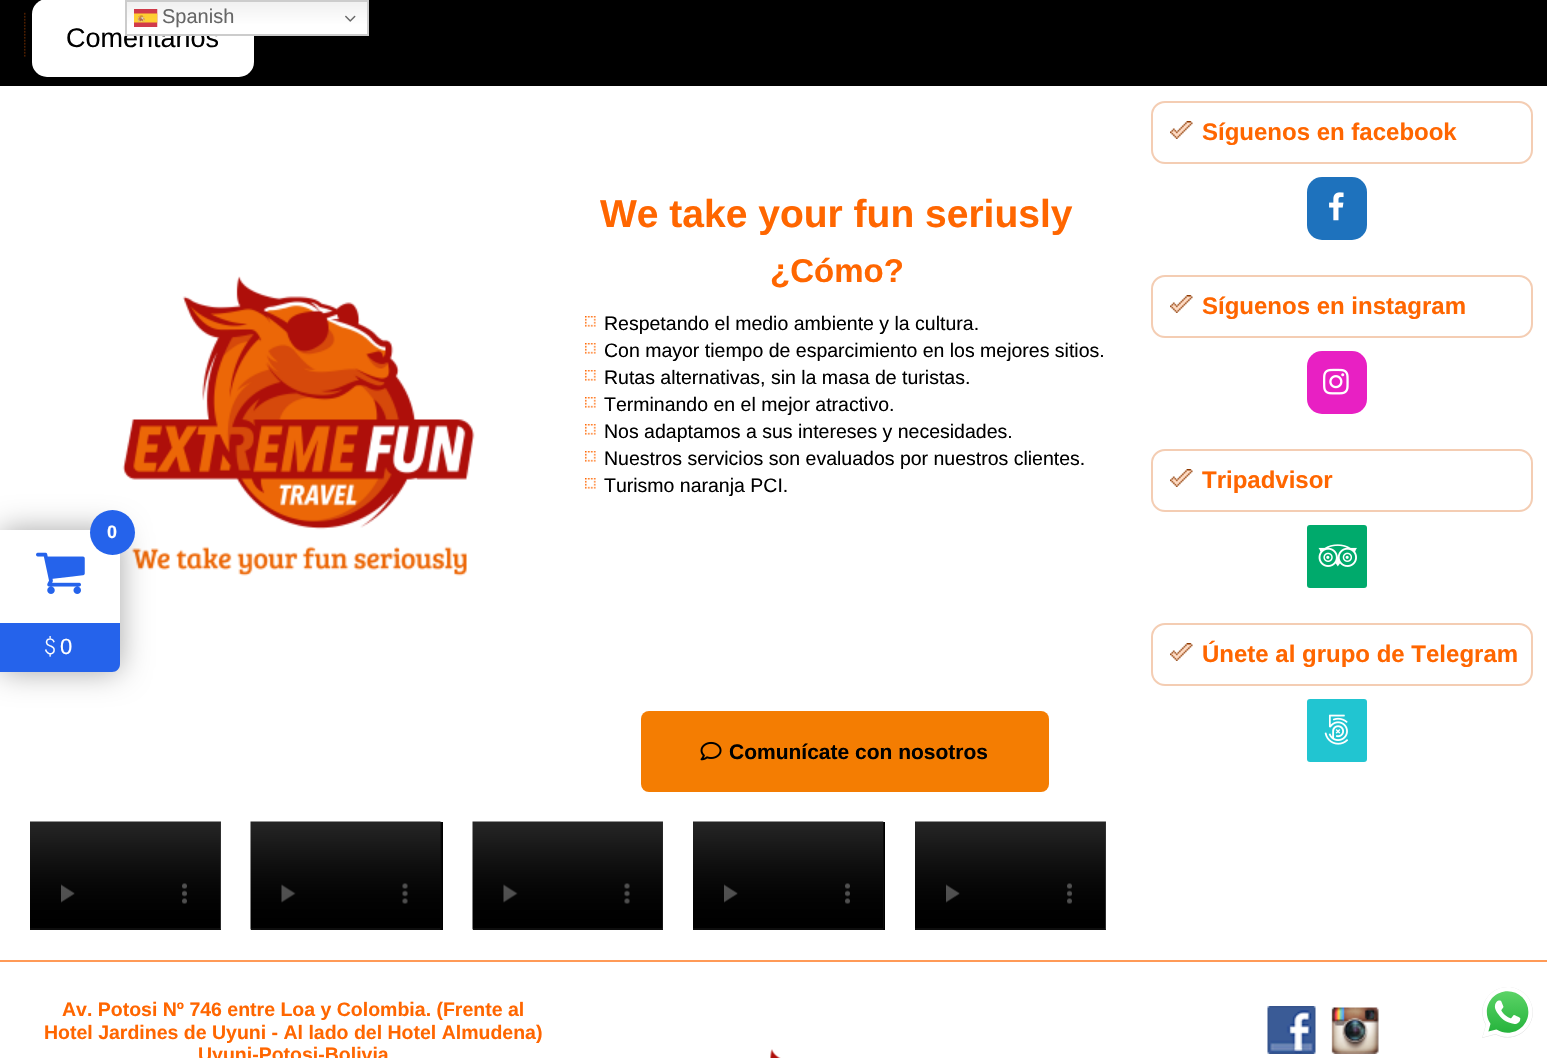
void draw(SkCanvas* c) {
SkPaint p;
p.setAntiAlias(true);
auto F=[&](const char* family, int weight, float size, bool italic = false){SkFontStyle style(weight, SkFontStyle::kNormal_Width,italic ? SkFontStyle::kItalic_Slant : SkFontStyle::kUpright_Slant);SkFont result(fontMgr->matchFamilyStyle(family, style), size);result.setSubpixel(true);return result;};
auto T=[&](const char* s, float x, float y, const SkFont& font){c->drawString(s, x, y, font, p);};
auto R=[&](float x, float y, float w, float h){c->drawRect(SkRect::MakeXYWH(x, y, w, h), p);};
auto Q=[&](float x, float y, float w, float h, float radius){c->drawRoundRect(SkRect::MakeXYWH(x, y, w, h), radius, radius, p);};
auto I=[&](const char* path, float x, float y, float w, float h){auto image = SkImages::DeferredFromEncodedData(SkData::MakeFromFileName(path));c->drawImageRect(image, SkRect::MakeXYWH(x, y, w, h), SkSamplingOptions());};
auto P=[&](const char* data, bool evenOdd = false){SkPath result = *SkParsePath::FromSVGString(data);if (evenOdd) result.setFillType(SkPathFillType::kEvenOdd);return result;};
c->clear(0xffffffff);
p.setColor(0xff000000);
R(0,0,1547,86);
p.setColor(0xffffffff);
Q(32,-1,222,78,15);
auto f1 = F("Liberation Sans",400,27);
p.setColor(0xff000000);
T("Comentarios",66,47,f1);
{
const SkColor colors[] = {0xffefefef,0xffffffff};
const float stops[] = {0,.7};
const SkPoint ends[] = {{247,0}, {247,36}};
p.setShader(SkGradientShader::MakeLinear(ends, colors, stops, 2, SkTileMode::kClamp));
p.setAlpha(255);
}
R(127,2,240,32);
p.setStroke(true);
p.setStrokeWidth(2);
p.setShader(nullptr);
p.setColor(0xffcccccc);
c->drawRect(SkRect::MakeXYWH(126,1,242,34),p);
I("1.png",134,9,24,18);
auto f2 = F("Liberation Sans",400,20);
p.setStroke(false);
p.setColor(0xff666666);
T("Spanish",162,23,f2);
I("2.png",345,15,11,7);
I("6.png",122,276,353,300);
p.setColor(0x59000000);
p.setMaskFilter(SkMaskFilter::MakeBlur(kNormal_SkBlurStyle, 15));
c->drawRoundRect(SkRect::MakeXYWH(0,530,120,142),8,8,p);
p.setMaskFilter(nullptr);
p.setColor(0xff2563eb);
c->drawPath(P("M0 530h112c4.5 0 8 3.5 8 8v126c0 4.5-3.5 8-8 8h-112z"),p);
p.setColor(0xffffffff);
R(0,530,120,93);
p.setColor(0xff2563eb);
c->drawCircle(112.5,532.5,22.5,p);
auto f3 = F("Liberation Sans",700,18);
p.setColor(0xffffffff);
T("0",107,538,f3);
I("3.png",36,552,49,42);
auto f4 = F("Jost",300,22);
T("$",44,654,f4);
auto f5 = F("Liberation Sans",400,22);
T("0",60,654,f5);
I("4.png",1482,987,51,51);
I("5.png",24,12,2,45);
auto f6 = F("Liberation Sans",700,39);
p.setColor(0xffff6600);
T("We take your fun seriusly",600,227,f6);
auto f7 = F("Liberation Sans",700,33);
T("¿Cómo?",770,282,f7);
I("7.png",585,316,11,11);
auto f8 = F("Liberation Sans",400,19.5);
p.setColor(0xff000000);
T("Respetando el medio ambiente y la cultura.",604,330,f8);
I("7.png",585,343,11,11);
T("Con mayor tiempo de esparcimiento en los mejores sitios.",604,357,f8);
I("7.png",585,370,11,11);
T("Rutas alternativas, sin la masa de turistas.",604,384,f8);
I("7.png",585,397,11,11);
T("Terminando en el mejor atractivo.",604,411,f8);
I("7.png",585,424,11,11);
T("Nos adaptamos a sus intereses y necesidades.",604,438,f8);
I("7.png",585,451,11,11);
T("Nuestros servicios son evaluados por nuestros clientes.",604,465,f8);
I("7.png",585,478,11,11);
T("Turismo naranja PCI.",604,492,f8);
p.setColor(0xfff47d02);
Q(641,711,408,81,8);
I("8.png",700,741,22,20);
auto f9 = F("Liberation Sans",700,21);
p.setColor(0xff000000);
T("Comunícate con nosotros",729,759,f9);
R(30,929,191,1);
I("9.png",30,821,191,109);
R(251,822,192,108);
I("10.png",250,821,192,109);
R(473,929,190,1);
I("11.png",472,821,191,109);
R(693,822,192,108);
I("12.png",693,821,191,109);
R(915,929,191,1);
I("9.png",915,821,191,109);
p.setStroke(true);
p.setColor(0xfff4cdb3);
c->drawRoundRect(SkRect::MakeXYWH(1152,102,380,61),13,13,p);
I("13.png",1170,121,23,18);
auto f10 = F("Liberation Sans",700,24);
p.setStroke(false);
p.setColor(0xffff6600);
T("Síguenos en facebook",1202,140,f10);
p.setColor(0xff1e72bd);
Q(1307,177,60,63,15);
I("14.png",1329,192,15,29);
p.setStroke(true);
p.setColor(0xfff4cdb3);
c->drawRoundRect(SkRect::MakeXYWH(1152,276,380,61),13,13,p);
I("13.png",1170,295,23,18);
p.setStroke(false);
p.setColor(0xffff6600);
T("Síguenos en instagram",1202,314,f10);
p.setColor(0xffe820c3);
Q(1307,351,60,63,15);
I("15.png",1323,368,26,27);
p.setStroke(true);
p.setColor(0xfff4cdb3);
c->drawRoundRect(SkRect::MakeXYWH(1152,450,380,61),13,13,p);
I("13.png",1170,469,23,18);
p.setStroke(false);
p.setColor(0xffff6600);
T("Tripadvisor",1202,488,f10);
p.setColor(0xff00aa6c);
Q(1307,525,60,63,3);
I("16.png",1318,544,39,23);
p.setStroke(true);
p.setColor(0xfff4cdb3);
c->drawRoundRect(SkRect::MakeXYWH(1152,624,380,61),13,13,p);
I("13.png",1170,643,23,18);
p.setStroke(false);
p.setColor(0xffff6600);
T("Únete al grupo de Telegram",1202,662,f10);
p.setColor(0xff21c5d1);
Q(1307,699,60,63,3);
I("17.png",1324,714,24,31);
p.setColor(0xffff9a57);
R(0,960,1547,2);
auto f11 = F("Liberation Sans",700,19.5);
p.setColor(0xffff6600);
T("Av. Potosi Nº 746 entre Loa y Colombia. (Frente al",62,1016,f11);
T("Hotel Jardines de Uyuni - Al lado del Hotel Almudena)",44,1039,f11);
T("Uyuni-Potosi-Bolivia",198,1061,f11);
I("18.png",770,1049,11,9);
I("19.png",1267,1006,49,48);
I("20.png",1331,1007,48,47);
}
